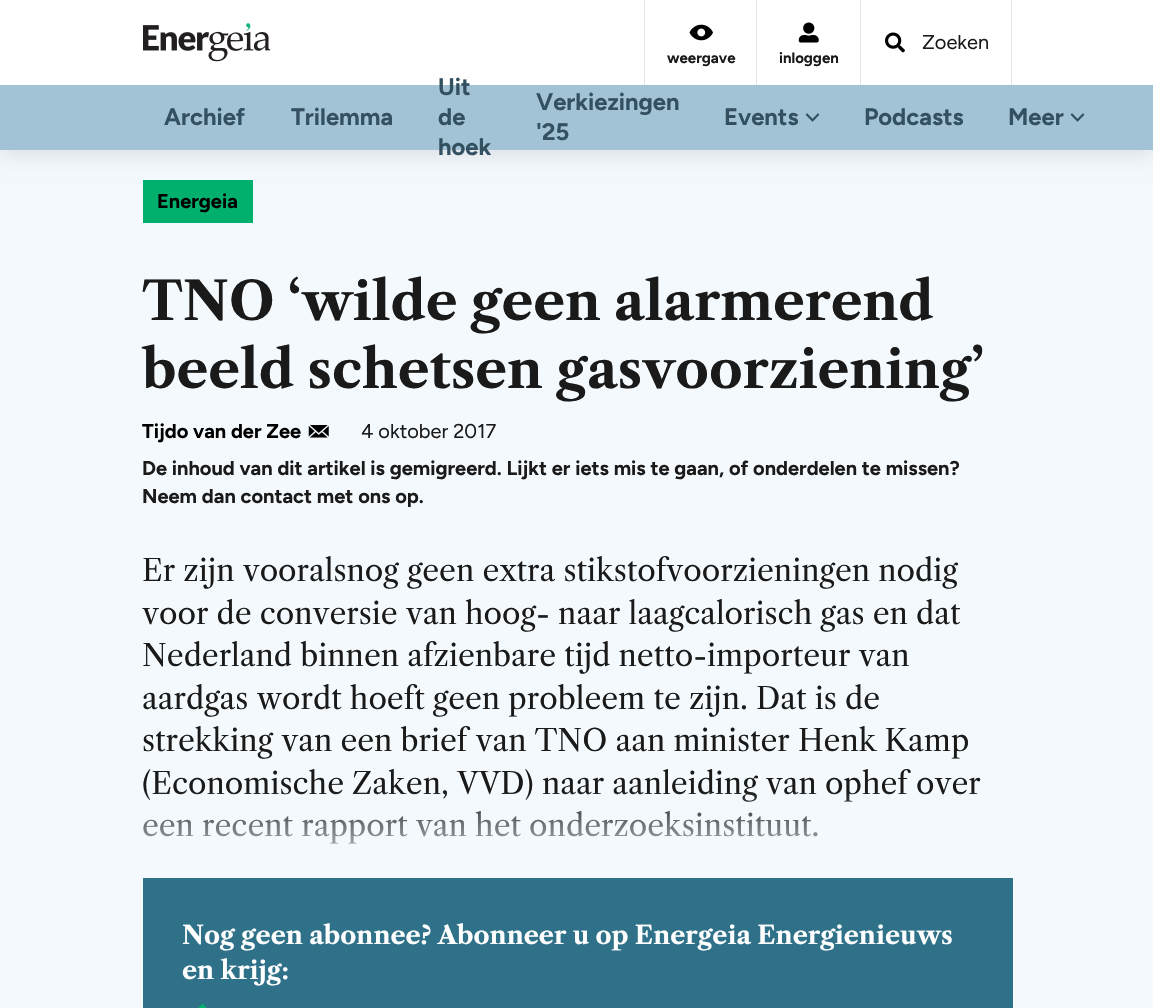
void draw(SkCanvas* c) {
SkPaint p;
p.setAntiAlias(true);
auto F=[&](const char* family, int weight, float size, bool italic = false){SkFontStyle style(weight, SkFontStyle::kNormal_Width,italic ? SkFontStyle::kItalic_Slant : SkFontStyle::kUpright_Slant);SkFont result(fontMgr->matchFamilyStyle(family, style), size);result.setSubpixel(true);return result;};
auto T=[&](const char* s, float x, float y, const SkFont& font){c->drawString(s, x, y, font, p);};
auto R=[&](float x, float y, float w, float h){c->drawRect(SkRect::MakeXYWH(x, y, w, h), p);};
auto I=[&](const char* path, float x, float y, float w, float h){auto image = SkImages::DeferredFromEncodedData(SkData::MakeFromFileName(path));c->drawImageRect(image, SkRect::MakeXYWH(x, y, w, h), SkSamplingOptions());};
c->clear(0xfff3f9fd);
p.setColor(0xff01b06d);
R(143,180,110,43);
p.setColor(0x1a000000);
p.setMaskFilter(SkMaskFilter::MakeBlur(kNormal_SkBlurStyle, 10));
c->drawRect(SkRect::MakeXYWH(0,5,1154,150),p);
p.setMaskFilter(nullptr);
p.setColor(0xffffffff);
R(0,0,1153,85);
I("1.png",143,23,127,39);
p.setColor(0xffe6e6e6);
R(1011,0,1,85);
R(860,0,1,85);
I("2.png",885,32,20,21);
auto f1 = F("Figtree",400,20);
p.setColor(0xff1a1a1a);
T("Zoeken",922,49,f1);
p.setColor(0xffe6e6e6);
R(644,0,1,85);
I("3.png",689,24,24,17);
auto f2 = F("Figtree",700,15);
p.setColor(0xff1a1a1a);
T("weergave",667,63,f2);
p.setColor(0xffe6e6e6);
R(756,0,1,85);
I("4.png",798,22,21,21);
p.setColor(0xff1a1a1a);
T("inloggen",779,63,f2);
p.setColor(0xffa2c3d6);
R(0,85,1153,65);
auto f3 = F("Figtree",700,23.75);
p.setColor(0xff335061);
T("Archief",164,125,f3);
T("Trilemma",291,125,f3);
T("Uit",438,95,f3);
T("de",438,125,f3);
T("hoek",438,155,f3);
T("Verkiezingen",536,110,f3);
T("'25",536,140,f3);
T("Events",724,125,f3);
I("5.png",805,113,15,9);
T("Podcasts",864,125,f3);
T("Meer",1008,125,f3);
I("5.png",1070,113,15,9);
auto f4 = F("Figtree",700,20);
p.setColor(0xff000000);
T("Energeia",157,208,f4);
auto f5 = F("Libre Caslon Text",700,52.5);
p.setColor(0xff1a1a1a);
T("TNO ‘wilde geen alarmerend",142,320,f5);
T("beeld schetsen gasvoorziening’",142,388,f5);
p.setColor(0xff000000);
T("Tijdo van der Zee",142,438,f4);
I("6.png",308,425,21,13);
p.setColor(0xff1a1a1a);
T("4 oktober 2017",361,438,f1);
T("De inhoud van dit artikel is gemigreerd. Lijkt er iets mis te gaan, of onderdelen te missen?",142,475,f4);
T("Neem dan contact met ons op.",142,503,f4);
auto f6 = F("Libre Caslon Text",400,30);
T("Er zijn vooralsnog geen extra stikstofvoorzieningen nodig",142,581,f6);
T("voor de conversie van hoog- naar laagcalorisch gas en dat",142,624,f6);
T("Nederland binnen afzienbare tijd netto-importeur van",142,666,f6);
T("aardgas wordt hoeft geen probleem te zijn. Dat is de",142,709,f6);
T("strekking van een brief van TNO aan minister Henk Kamp",142,751,f6);
T("(Economische Zaken, VVD) naar aanleiding van ophef over",142,794,f6);
T("een recent rapport van het onderzoeksinstituut.",142,836,f6);
{
const SkColor colors[] = {0xfff3f9fd,0x00f3f9fd};
const float stops[] = {0,1};
const SkPoint ends[] = {{578,878}, {578,790}};
p.setShader(SkGradientShader::MakeLinear(ends, colors, stops, 2, SkTileMode::kClamp));
p.setAlpha(255);
}
R(143,792,834,52);
p.setShader(nullptr);
p.setColor(0xff2f7189);
R(143,878,870,130);
auto f7 = F("Libre Caslon Text",700,25);
p.setColor(0xffffffff);
T("Nog geen abonnee? Abonneer u op Energeia Energienieuws",182,944,f7);
T("en krijg:",182,979,f7);
I("7.png",198,1004,8,4);
}
